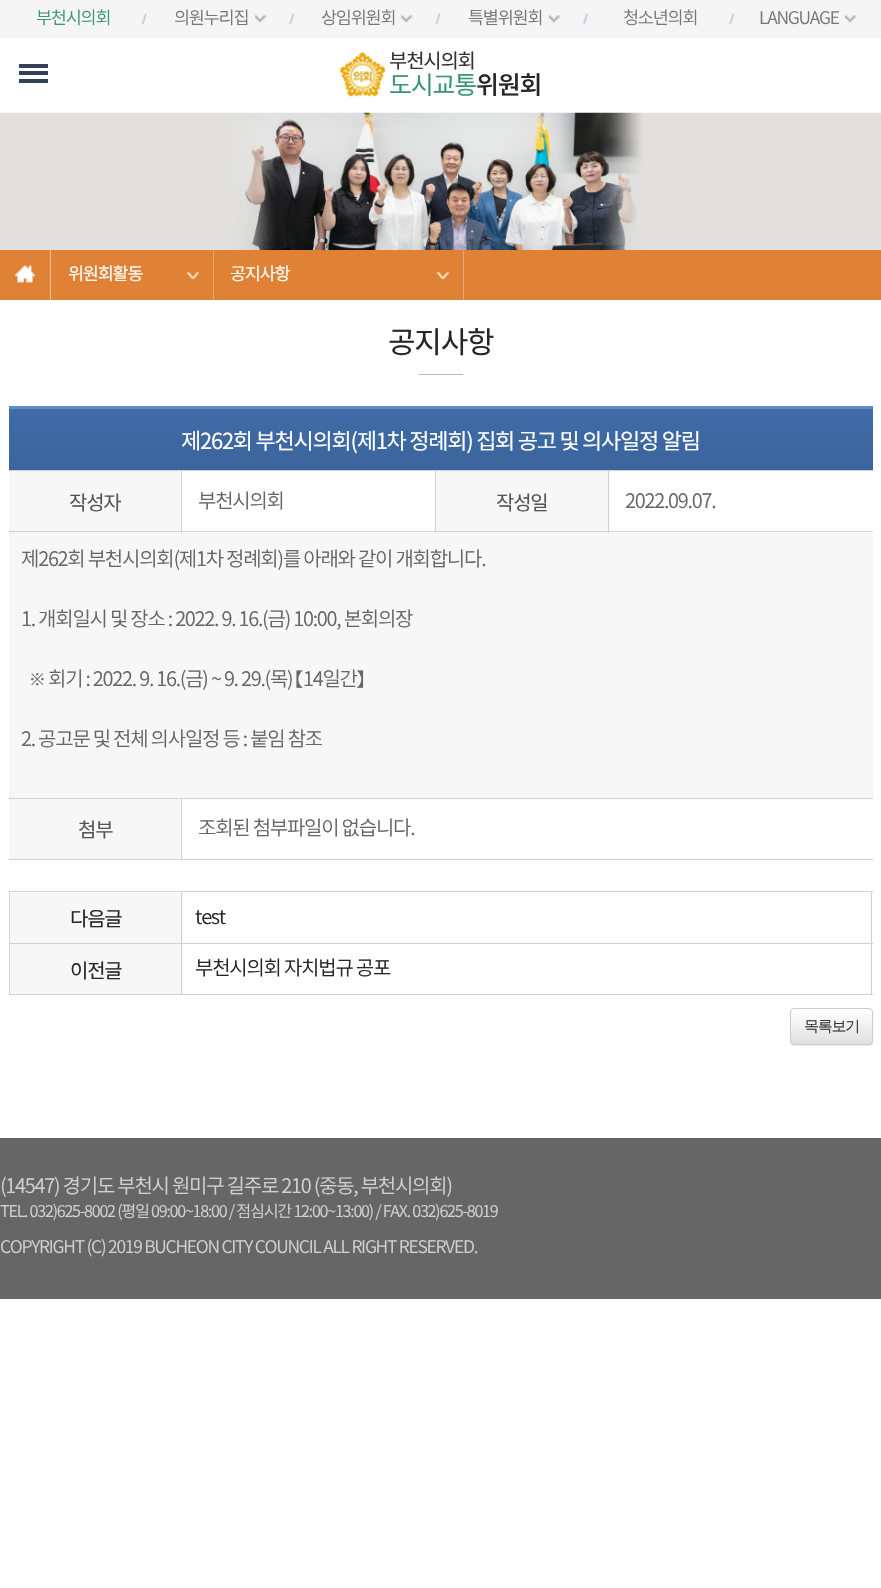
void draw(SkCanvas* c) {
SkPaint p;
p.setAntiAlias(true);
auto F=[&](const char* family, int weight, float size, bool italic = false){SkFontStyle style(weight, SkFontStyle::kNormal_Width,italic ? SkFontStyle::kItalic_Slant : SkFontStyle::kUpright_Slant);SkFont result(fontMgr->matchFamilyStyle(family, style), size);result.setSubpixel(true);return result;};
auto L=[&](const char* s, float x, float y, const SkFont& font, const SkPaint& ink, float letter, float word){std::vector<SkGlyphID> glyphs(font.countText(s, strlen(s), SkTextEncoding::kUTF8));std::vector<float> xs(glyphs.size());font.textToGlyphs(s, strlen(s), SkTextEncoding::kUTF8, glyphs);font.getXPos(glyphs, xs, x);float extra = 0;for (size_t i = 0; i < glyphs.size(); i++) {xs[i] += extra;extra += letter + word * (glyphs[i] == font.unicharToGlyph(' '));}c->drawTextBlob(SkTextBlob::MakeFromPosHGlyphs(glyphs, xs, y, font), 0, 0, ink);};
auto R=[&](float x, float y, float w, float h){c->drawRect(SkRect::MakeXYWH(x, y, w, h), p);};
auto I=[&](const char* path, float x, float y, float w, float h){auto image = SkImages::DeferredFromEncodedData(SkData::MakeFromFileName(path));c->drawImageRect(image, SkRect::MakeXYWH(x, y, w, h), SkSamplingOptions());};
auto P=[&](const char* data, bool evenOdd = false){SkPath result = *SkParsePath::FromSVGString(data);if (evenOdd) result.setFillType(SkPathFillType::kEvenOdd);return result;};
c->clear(0xffffffff);
p.setColor(0xfff5f5f5);
R(0,0,881,38);
auto f1 = F("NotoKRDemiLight",300,17.5);
p.setColor(0xff3b9871);
L("부천시의회",36,24,f1,p,-1.25,0);
I("1.png",141,13,6,11);
p.setColor(0xff777777);
L("의원누리집",174,24,f1,p,-1.25,0);
I("2.png",255,15,12,8);
I("3.png",288,13,6,11);
L("상임위원회",321,24,f1,p,-1.25,0);
I("4.png",401,15,12,8);
I("5.png",435,13,5,11);
L("특별위원회",468,24,f1,p,-1.25,0);
I("6.png",548,15,12,8);
I("7.png",582,13,6,11);
L("청소년의회",623,24,f1,p,-1.25,0);
I("3.png",728,13,6,11);
L("LANGUAGE",759,24,f1,p,-1.25,0);
I("2.png",845,15,12,8);
p.setColor(0xff37405b);
R(19,64,29,4);
R(19,71,29,4);
R(19,79,29,4);
I("8.png",340,52,45,45);
auto f2 = F("Noto Sans KR",400,20);
p.setColor(0xff333333);
L("부천시의회",389,68,f2,p,-1.25,0);
auto f3 = F("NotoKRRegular",400,25);
p.setColor(0xff3b9871);
L("도시교통",389,94,f3,p,-1.25,0);
auto f4 = F("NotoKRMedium",500,25);
p.setColor(0xff262626);
L("위원회",476,94,f4,p,-1.25,0);
I("9.png",0,112,881,138);
p.setColor(0xffe08235);
R(0,250,881,50);
p.setColor(0xfff0c19a);
R(50,250,1,50);
I("10.png",15,265,20,18);
p.setColor(0xffe9a872);
R(213,250,1,50);
auto f5 = F("NotoKRRegular",400,17.5);
p.setColor(0xffffffff);
L("위원회활동",68,280,f5,p,-1.25,0);
I("11.png",186,271,13,8);
p.setColor(0xffe9a872);
R(463,250,1,50);
p.setColor(0xffffffff);
L("공지사항",230,280,f5,p,-1.25,0);
I("11.png",436,271,13,8);
auto f6 = F("NotoKRRegular",400,30);
p.setColor(0xff262626);
L("공지사항",388,353,f6,p,-1.25,0);
p.setColor(0xffbbbbbb);
R(419,374,44,1);
p.setColor(0xff5f8dc9);
R(9,406,864,3);
{
const SkColor colors[] = {0xff3f6ca8,0xff3b649c};
const float stops[] = {0,1};
const SkPoint ends[] = {{441,407}, {441,470}};
p.setShader(SkGradientShader::MakeLinear(ends, colors, stops, 2, SkTileMode::kClamp));
p.setAlpha(255);
}
R(9,409,864,61);
p.setShader(nullptr);
p.setColor(0xfff7f7f7);
R(436,471,172,62);
p.setColor(0xffcfd1d6);
R(608,531,265,1);
R(608,470,1,63);
R(435,531,174,1);
R(435,470,1,63);
R(181,531,255,1);
R(181,470,1,63);
R(9,470,864,1);
auto f7 = F("Noto Sans KR",400,22);
p.setColor(0xffffffff);
L("제262회 부천시의회(제1차 정례회) 집회 공고 및 의사일정 알림",181,449,f7,p,-1.25,0);
p.setColor(0xfff7f7f7);
R(9,471,172,62);
p.setColor(0xffcfd1d6);
R(9,531,174,1);
p.setColor(0xff555555);
L("작성자",69,510,f2,p,-1.25,0);
auto f8 = F("NotoKRDemiLight",300,20);
p.setColor(0xff666666);
L("부천시의회",198,508,f8,p,-1.25,0);
p.setColor(0xff555555);
L("작성일",496,510,f2,p,-1.25,0);
p.setColor(0xff666666);
L("2022.09.07.",625,508,f8,p,-1.25,0);
p.setColor(0xfff7f7f7);
R(9,533,864,265);
p.setColor(0xffcfd1d6);
R(181,859,692,1);
R(181,798,1,62);
R(9,798,864,1);
p.setColor(0xff666666);
L("제262회 부천시의회(제1차 정례회)를 아래와 같이 개회합니다.",21,566,f8,p,-1.25,0);
L("1. 개회일시 및 장소 : 2022. 9. 16.(금) 10:00, 본회의장",21,626,f8,p,-1.25,0);
auto f9 = F("NanumGothic",400,20);
L("※",28,686,f9,p,-1.25,0);
L("회기 : 2022. 9. 16.(금) ~ 9. 29.(목)",48,686,f8,p,-1.25,0);
L("【",296,686,f9,p,-1.25,0);
L("14일간",303,686,f8,p,-1.25,0);
L("】",356,686,f9,p,-1.25,0);
L("2. 공고문 및 전체 의사일정 등 : 붙임 참조",21,746,f8,p,-1.25,0);
p.setColor(0xfff7f7f7);
R(9,799,172,60);
p.setColor(0xffcfd1d6);
R(9,859,174,1);
p.setColor(0xff555555);
L("첨부",78,837,f2,p,-1.25,0);
p.setColor(0xff666666);
L("조회된 첨부파일이 없습니다.",198,835,f8,p,-1.25,0);
p.setColor(0xfff7f7f7);
R(10,893,173,50);
p.setColor(0xffced1d6);
R(181,891,692,1);
R(181,943,692,1);
p.setColor(0xfff7f7f7);
R(10,944,173,50);
p.setColor(0xffced1d6);
R(871,943,1,52);
R(181,994,692,1);
R(181,943,1,52);
R(9,943,174,1);
R(181,891,1,53);
R(9,891,174,1);
R(9,994,174,1);
R(9,943,1,52);
R(9,891,1,53);
p.setColor(0xff262626);
L("다음글",70,926,f2,p,-1.25,0);
p.setColor(0xffced1d6);
R(871,891,1,53);
p.setColor(0xff262626);
L("test",195,924,f8,p,-1.25,0);
L("이전글",70,978,f2,p,-1.25,0);
L("부천시의회 자치법규 공포",195,975,f8,p,-1.25,0);
p.setColor(0x12000000);
p.setMaskFilter(SkMaskFilter::MakeBlur(kNormal_SkBlurStyle, .5));
c->drawRoundRect(SkRect::MakeXYWH(790,1009,83,37),4,4,p);
p.setMaskFilter(nullptr);
c->save();
c->clipPath(P("M794 1008h75c2 0 4 2 4 4v29c0 2-2 4-4 4h-75c-2 0-4-2-4-4v-29c0-2 2-4 4-4z"),true);
{
const SkColor colors[] = {0xffffffff,0xffe0e0e0};
const float stops[] = {0,1};
const SkPoint ends[] = {{831,1009}, {831,1044}};
p.setShader(SkGradientShader::MakeLinear(ends, colors, stops, 2, SkTileMode::kClamp));
p.setAlpha(255);
}
R(790,1009,83,35);
c->restore();
p.setStroke(true);
p.setStrokeWidth(1);
p.setShader(nullptr);
p.setColor(0xffcccccc);
c->drawRoundRect(SkRect::MakeXYWH(790.5,1008.5,82,36),3.5,3.5,p);
auto f10 = F("WenQuanYi Zen Hei",500,15);
p.setStroke(false);
p.setColor(0xff333333);
L("목록보기",804,1031,f10,p,-1.25,0);
p.setColor(0xff666666);
R(0,1138,881,161);
p.setColor(0xffd1d1d1);
L("(14547) 경기도 부천시 원미구 길주로 210 (중동, 부천시의회)",0,1193,f8,p,-1.25,0);
auto f11 = F("NotoKRDemiLight",300,16.25);
L("TEL. 032)625-8002 (평일 09:00~18:00 / 점심시간 12:00~13:00) / FAX. 032)625-8019",0,1217,f11,p,-1.25,0);
L("COPYRIGHT (C) 2019 BUCHEON CITY COUNCIL ALL RIGHT RESERVED.",0,1253,f1,p,-1.25,0);
}
